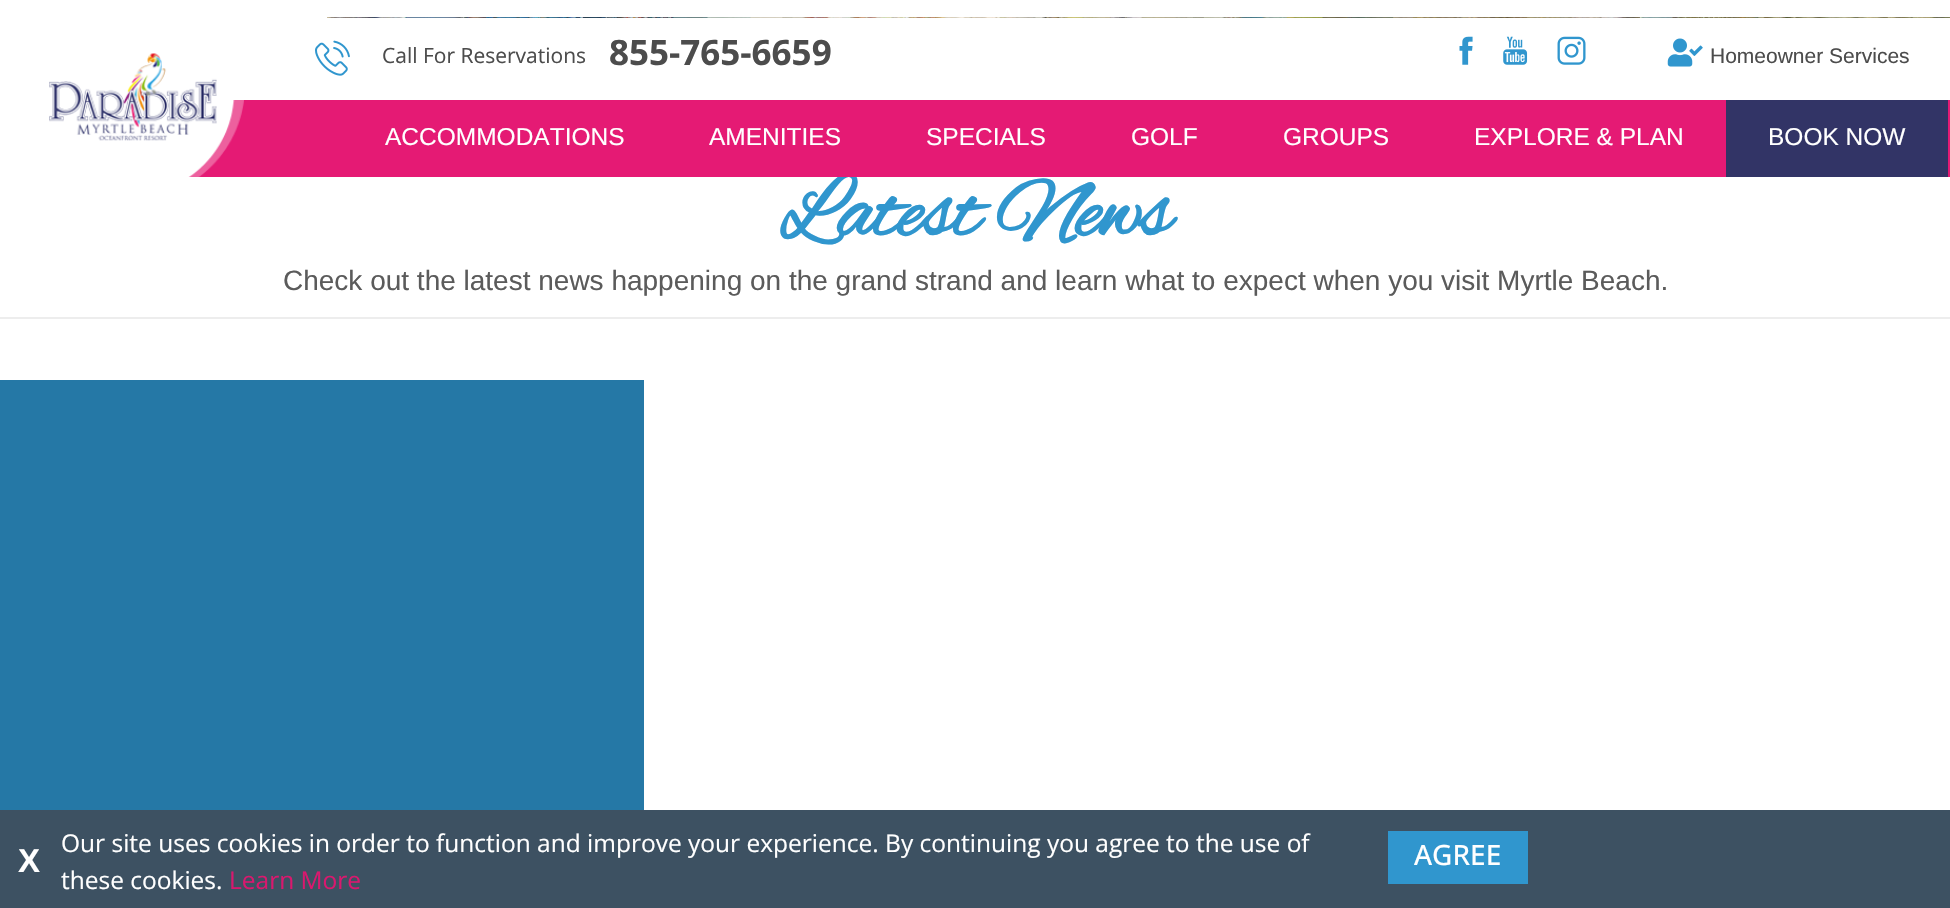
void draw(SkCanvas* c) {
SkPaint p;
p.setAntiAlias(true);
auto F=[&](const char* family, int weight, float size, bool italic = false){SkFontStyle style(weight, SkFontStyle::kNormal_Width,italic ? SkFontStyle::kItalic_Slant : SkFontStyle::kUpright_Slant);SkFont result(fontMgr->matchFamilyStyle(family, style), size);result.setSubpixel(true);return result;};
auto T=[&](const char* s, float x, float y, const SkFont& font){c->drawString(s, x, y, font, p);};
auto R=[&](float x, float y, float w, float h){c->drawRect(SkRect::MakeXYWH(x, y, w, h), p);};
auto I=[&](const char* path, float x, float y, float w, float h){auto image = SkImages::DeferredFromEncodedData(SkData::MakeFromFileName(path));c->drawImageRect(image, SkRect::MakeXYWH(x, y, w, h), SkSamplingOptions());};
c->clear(0xffffffff);
auto f1 = F("Alex Brush",700,87.5);
p.setColor(0xff3096ce);
T("Latest News",780,235,f1);
p.setColor(0xffe51a74);
R(188,100,1762,77);
I("1.png",49,53,195,124);
I("2.png",315,40,35,36);
auto f2 = F("Open Sans",400,21);
p.setColor(0xff4c4c4c);
T("Call For Reservations",382,63,f2);
auto f3 = F("Open Sans",700,35);
T("855-765-6659",609,65,f3);
I("3.png",1459,36,14,29);
I("4.png",1503,36,25,29);
I("5.png",1557,36,29,29);
I("6.png",1667,38,36,29);
auto f4 = F("Liberation Sans",400,21);
T("Homeowner Services",1710,63,f4);
auto f5 = F("Liberation Sans",400,24.5);
p.setColor(0xffffffff);
T("ACCOMMODATIONS",385,145,f5);
I("7.png",330,17,421,1);
I("8.png",782,17,422,1);
I("9.png",1236,17,291,1);
I("10.png",1559,17,391,1);
T("AMENITIES",709,145,f5);
T("SPECIALS",926,145,f5);
I("11.png",327,17,501,1);
I("12.png",850,17,544,1);
I("13.png",1412,17,538,1);
T("GOLF",1131,145,f5);
T("GROUPS",1283,145,f5);
I("14.png",329,17,345,1);
I("15.png",707,17,336,1);
I("16.png",1082,17,205,1);
I("17.png",1322,17,319,1);
I("18.png",1671,17,279,1);
T("EXPLORE & PLAN",1474,145,f5);
p.setColor(0xff323466);
R(1726,100,222,77);
p.setColor(0xffffffff);
T("BOOK NOW",1768,145,f5);
p.setColor(0xffededed);
R(0,317,1950,2);
auto f6 = F("Liberation Sans",400,28);
p.setColor(0xff5b5b5b);
T("Check out the latest news happening on the grand strand and learn what to expect when you visit Myrtle Beach.",283,290,f6);
p.setColor(0xff2578a6);
R(0,380,644,430);
p.setColor(0xff3d5162);
R(0,810,1950,98);
auto f7 = F("Liberation Sans",700,33);
p.setColor(0xffffffff);
T("X",18,872,f7);
auto f8 = F("Open Sans",400,24.5);
T("Our site uses cookies in order to function and improve your experience. By continuing you agree to the use of",61,852,f8);
T("these cookies.",61,889,f8);
p.setColor(0xffd9186e);
T("Learn More",229,889,f8);
p.setColor(0xff3096ce);
R(1388,831,140,53);
auto f9 = F("Open Sans",500,28);
p.setColor(0xffffffff);
T("AGREE",1414,865,f9);
}
